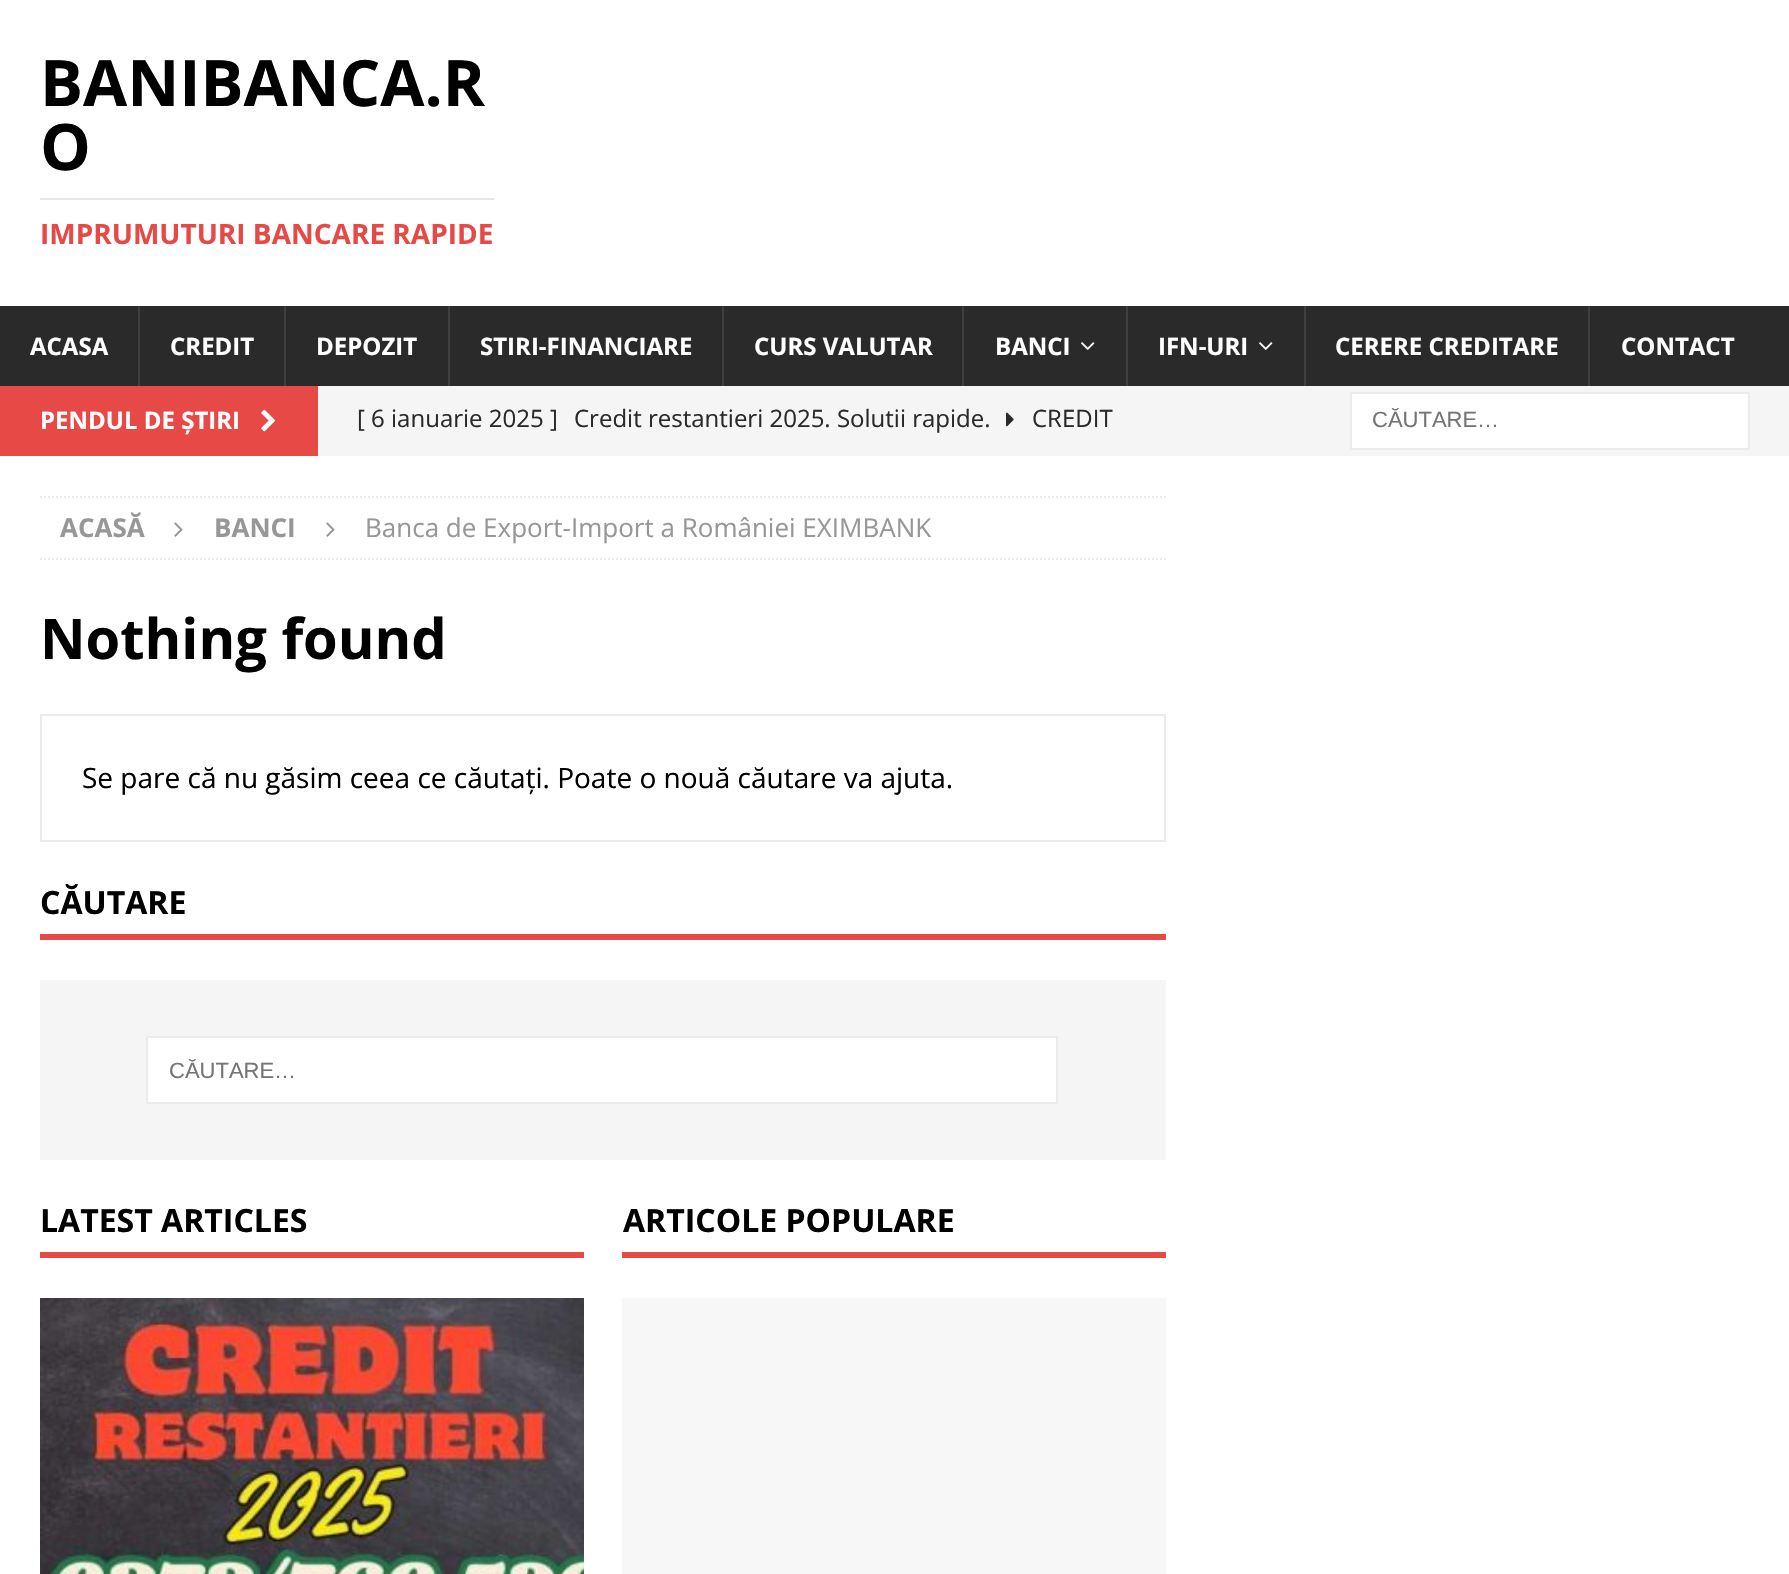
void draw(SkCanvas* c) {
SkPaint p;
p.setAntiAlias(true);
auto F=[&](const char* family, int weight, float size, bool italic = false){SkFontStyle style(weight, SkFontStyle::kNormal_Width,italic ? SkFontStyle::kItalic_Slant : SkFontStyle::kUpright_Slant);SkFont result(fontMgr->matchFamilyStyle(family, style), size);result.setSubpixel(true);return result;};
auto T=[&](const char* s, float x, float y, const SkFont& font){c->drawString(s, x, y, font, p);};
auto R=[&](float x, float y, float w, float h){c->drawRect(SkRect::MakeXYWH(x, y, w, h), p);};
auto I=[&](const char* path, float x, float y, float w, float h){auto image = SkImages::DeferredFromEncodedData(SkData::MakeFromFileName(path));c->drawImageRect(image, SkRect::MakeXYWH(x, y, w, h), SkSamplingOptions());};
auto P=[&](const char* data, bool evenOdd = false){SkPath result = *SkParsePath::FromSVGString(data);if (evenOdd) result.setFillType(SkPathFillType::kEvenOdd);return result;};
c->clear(0xffffffff);
auto f1 = F("Open Sans",700,64);
p.setColor(0xff000000);
T("BANIBANCA.R",40,106,f1);
T("O",40,170,f1);
p.setColor(0xffe5e5e5);
R(40,198,454,2);
auto f2 = F("Open Sans",700,28);
p.setColor(0xffe64946);
T("IMPRUMUTURI BANCARE RAPIDE",40,244,f2);
p.setColor(0xff2a2a2a);
R(0,306,1789,80);
auto f3 = F("Open Sans",700,24);
p.setColor(0xffffffff);
T("ACASA",30,355,f3);
p.setColor(0xff3f3f3f);
R(138,306,2,80);
p.setColor(0xffffffff);
T("CREDIT",170,355,f3);
p.setColor(0xff3f3f3f);
R(284,306,2,80);
p.setColor(0xffffffff);
T("DEPOZIT",316,355,f3);
p.setColor(0xff3f3f3f);
R(448,306,2,80);
p.setColor(0xffffffff);
T("STIRI-FINANCIARE",480,355,f3);
p.setColor(0xff3f3f3f);
R(722,306,2,80);
p.setColor(0xffffffff);
T("CURS VALUTAR",754,355,f3);
p.setColor(0xff3f3f3f);
R(962,306,2,80);
p.setColor(0xffffffff);
T("BANCI",995,355,f3);
I("1.png",1081,342,14,8);
p.setColor(0xff3f3f3f);
R(1126,306,2,80);
p.setColor(0xffffffff);
T("IFN-URI",1158,355,f3);
I("1.png",1259,342,14,8);
p.setColor(0xff3f3f3f);
R(1304,306,2,80);
p.setColor(0xffffffff);
T("CERERE CREDITARE",1335,355,f3);
p.setColor(0xff3f3f3f);
R(1588,306,2,80);
p.setColor(0xffffffff);
T("CONTACT",1621,355,f3);
p.setColor(0xfff5f5f5);
R(318,386,1471,70);
p.setColor(0xffe64946);
R(0,386,318,70);
p.setColor(0xffffffff);
T("PENDUL DE ȘTIRI",40,429,f3);
I("2.png",261,409,14,23);
auto f4 = F("Open Sans",400,24);
p.setColor(0xff2a2a2a);
T("[ 6 ianuarie 2025 ]",357,427,f4);
T("Credit restantieri 2025. Solutii rapide.",574,427,f4);
I("3.png",1006,412,8,15);
T("CREDIT",1032,427,f4);
p.setColor(0xffffffff);
c->drawRect(SkRect::MakeXYWH(1351,393,398,56),p);
p.setStroke(true);
p.setStrokeWidth(2);
p.setColor(0xffebebeb);
c->drawRect(SkRect::MakeXYWH(1351,393,398,56),p);
auto f5 = F("Liberation Sans",400,22);
p.setStroke(false);
p.setColor(0xff757575);
T("CĂUTARE…",1372,427,f5);
p.setStroke(true);
p.setColor(0xffebebeb);
p.setPathEffect(SkDashPathEffect::Make({{2,2}}, 0));
c->drawPath(P("M40 497h1126"),p);
p.setPathEffect(nullptr);
p.setPathEffect(SkDashPathEffect::Make({{2,2}}, 0));
c->drawPath(P("M40 559h1126"),p);
p.setPathEffect(nullptr);
auto f6 = F("Open Sans",700,26);
p.setStroke(false);
p.setColor(0xff979797);
T("ACASĂ",60,537,f6);
I("4.png",174,522,9,15);
T("BANCI",214,537,f6);
I("4.png",326,522,9,15);
auto f7 = F("Open Sans",400,26);
T("Banca de Export-Import a României EXIMBANK",365,537,f7);
auto f8 = F("Open Sans",700,56);
p.setColor(0xff000000);
T("Nothing found",40,659,f8);
p.setStroke(true);
p.setColor(0xffebebeb);
c->drawRect(SkRect::MakeXYWH(41,715,1124,126),p);
auto f9 = F("Open Sans",400,28);
p.setStroke(false);
p.setColor(0xff000000);
T("Se pare că nu găsim ceea ce căutați. Poate o nouă căutare va ajuta.",82,788,f9);
p.setColor(0xffe64946);
R(40,934,1126,6);
auto f10 = F("Open Sans",700,32);
p.setColor(0xff000000);
T("CĂUTARE",40,914,f10);
p.setColor(0xfff5f5f5);
R(40,980,1126,180);
p.setColor(0xffffffff);
c->drawRect(SkRect::MakeXYWH(147,1037,910,66),p);
p.setStroke(true);
p.setColor(0xffebebeb);
c->drawRect(SkRect::MakeXYWH(147,1037,910,66),p);
p.setStroke(false);
p.setColor(0xff757575);
T("CĂUTARE…",169,1078,f5);
p.setColor(0xffe64946);
R(40,1252,544,6);
p.setColor(0xff000000);
T("LATEST ARTICLES",40,1232,f10);
I("5.png",40,1298,544,276);
p.setColor(0xffe64946);
R(622,1252,544,6);
p.setColor(0xff000000);
T("ARTICOLE POPULARE",623,1232,f10);
p.setColor(0xfff7f7f7);
R(622,1298,544,276);
}
